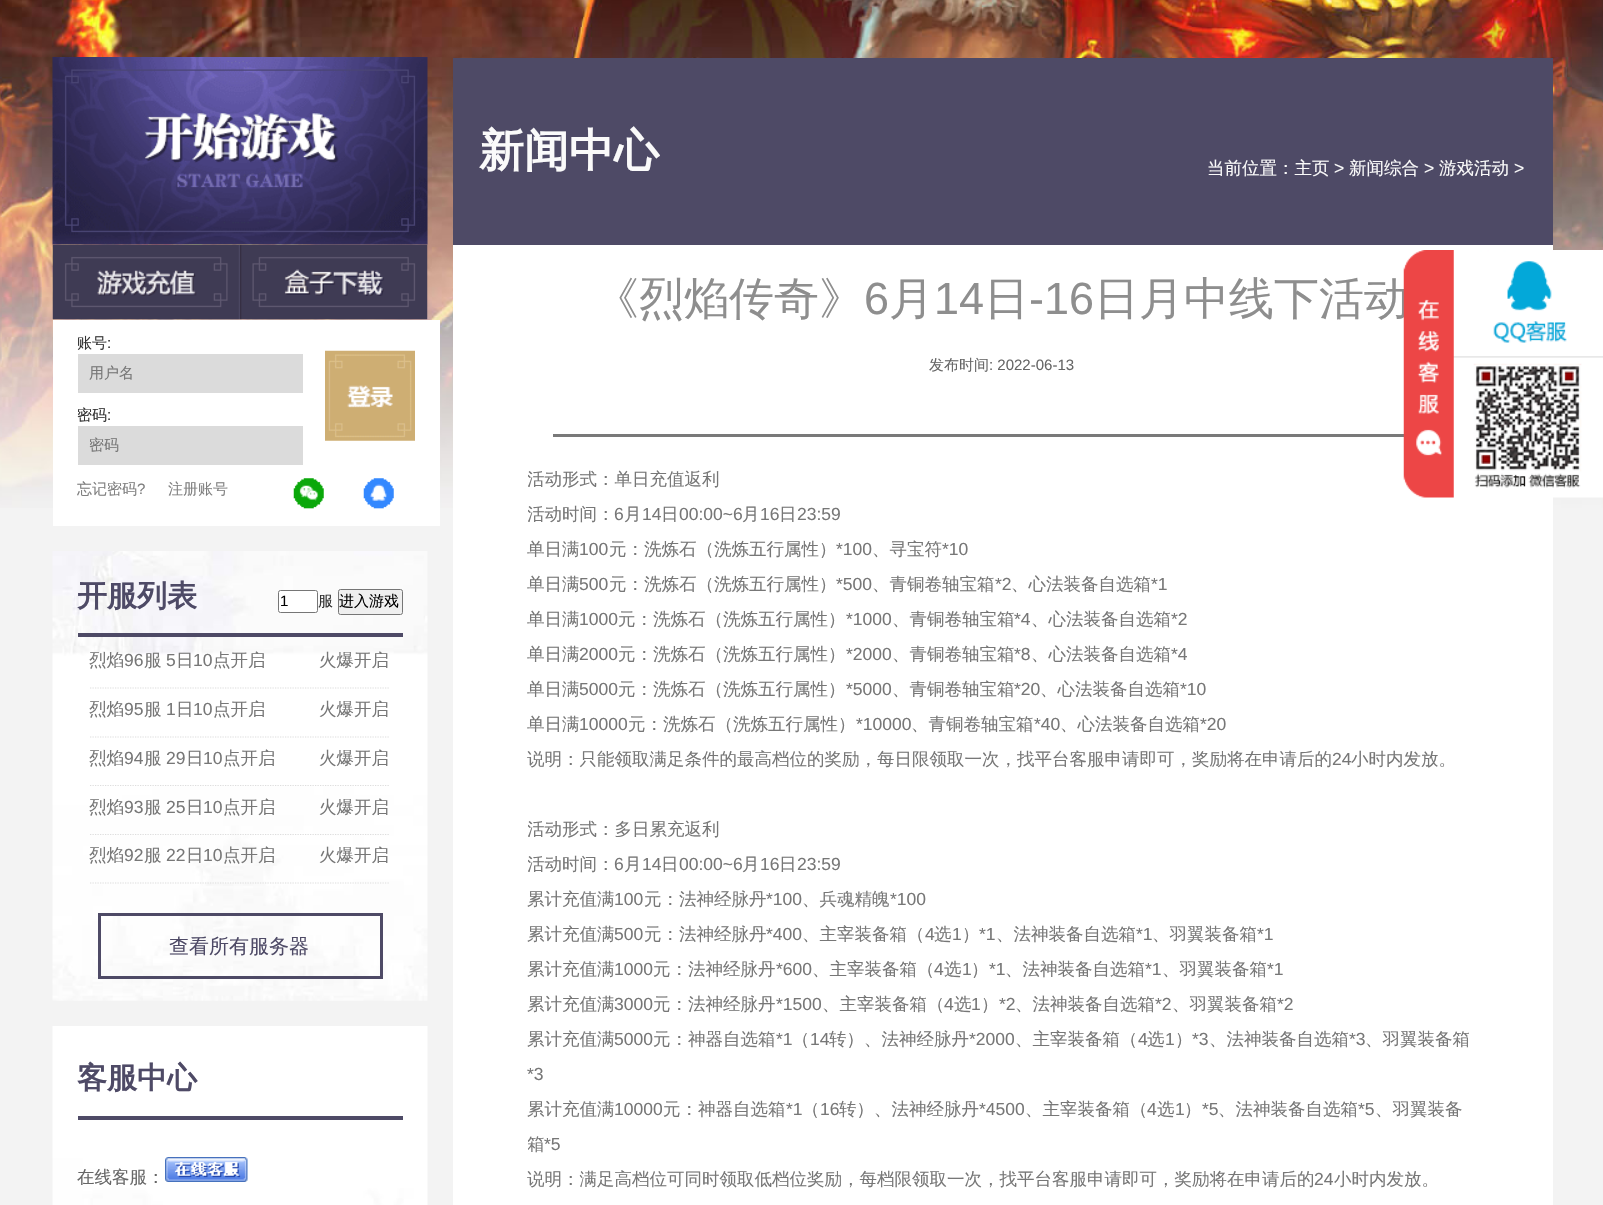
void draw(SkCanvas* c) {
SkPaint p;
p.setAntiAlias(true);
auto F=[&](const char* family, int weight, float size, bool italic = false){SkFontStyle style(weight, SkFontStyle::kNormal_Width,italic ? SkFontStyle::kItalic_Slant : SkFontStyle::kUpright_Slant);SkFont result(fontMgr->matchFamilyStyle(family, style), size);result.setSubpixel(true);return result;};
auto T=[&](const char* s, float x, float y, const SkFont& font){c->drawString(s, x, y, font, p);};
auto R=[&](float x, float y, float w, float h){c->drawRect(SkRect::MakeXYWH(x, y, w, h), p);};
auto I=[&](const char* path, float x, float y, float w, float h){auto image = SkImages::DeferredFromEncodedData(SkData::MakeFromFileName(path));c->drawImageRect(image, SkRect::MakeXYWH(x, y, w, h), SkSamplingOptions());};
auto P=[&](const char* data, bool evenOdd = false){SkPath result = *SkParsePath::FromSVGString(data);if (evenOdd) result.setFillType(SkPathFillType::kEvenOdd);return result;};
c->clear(0xfff3f3f3);
I("1.png",0,0,1603,508);
I("3.png",52,244,188,76);
I("4.png",240,244,188,76);
I("2.png",52,57,376,188);
p.setColor(0xffffffff);
R(53,320,387,206);
auto f1 = F("WenQuanYi Zen Hei",500,15);
p.setColor(0xff333333);
T("账号",77,348,f1);
auto f2 = F("Liberation Sans",400,15);
T(":",107,348,f2);
p.setColor(0xffdbdbdb);
R(78,354,225,39);
p.setColor(0xff777777);
T("用户名",89,378,f1);
p.setColor(0xff333333);
T("密码",77,420,f1);
T(":",107,420,f2);
p.setColor(0xffdbdbdb);
R(78,426,225,39);
p.setColor(0xff777777);
T("密码",89,450,f1);
I("5.png",325,350,90,91);
p.setColor(0xff808080);
T("忘记密码",77,494,f1);
T("?",137,494,f2);
T("注册账号",168,494,f1);
I("6.png",293,478,31,31);
I("7.png",363,478,31,31);
I("8.png",52,551,376,450);
p.setColor(0xff4e4a66);
R(78,633,325,4);
auto f3 = F("WenQuanYi Zen Hei",700,30);
T("开服列表",77,606,f3);
p.setColor(0xffffffff);
c->drawRoundRect(SkRect::MakeXYWH(278.5,590.5,39,22),2,2,p);
p.setStroke(true);
p.setStrokeWidth(1);
p.setColor(0xff767676);
c->drawRoundRect(SkRect::MakeXYWH(278.5,590.5,39,22),2,2,p);
p.setStroke(false);
p.setColor(0xff000000);
T("1",280,606,f2);
p.setColor(0xff333333);
T("服",318,606,f1);
p.setColor(0xffefefef);
c->drawRoundRect(SkRect::MakeXYWH(338.5,589.5,64,25),2,2,p);
p.setStroke(true);
p.setColor(0xff767676);
c->drawRoundRect(SkRect::MakeXYWH(338.5,589.5,64,25),2,2,p);
p.setStroke(false);
p.setColor(0xff000000);
T("进入游戏",339,606,f1);
p.setStroke(true);
p.setStrokeWidth(1.2);
p.setColor(0xffdddddd);
p.setPathEffect(SkDashPathEffect::Make({{1.25f,1.25f}}, 0));
c->drawPath(P("M90 688h300"),p);
p.setPathEffect(nullptr);
auto f4 = F("WenQuanYi Zen Hei",500,17.5);
p.setStroke(false);
p.setColor(0xff777777);
T("烈焰",89,666,f4);
auto f5 = F("Liberation Sans",400,17.5);
T("96",124,666,f5);
T("服",144,666,f4);
T("5",166,666,f5);
T("日",176,666,f4);
T("10",193,666,f5);
T("点开启",213,666,f4);
T("火爆开启",319,666,f4);
p.setStroke(true);
p.setColor(0xffdddddd);
p.setPathEffect(SkDashPathEffect::Make({{1.25f,1.25f}}, 0));
c->drawPath(P("M90 737h300"),p);
p.setPathEffect(nullptr);
p.setStroke(false);
p.setColor(0xff777777);
T("烈焰",89,715,f4);
T("95",124,715,f5);
T("服",144,715,f4);
T("1",166,715,f5);
T("日",176,715,f4);
T("10",193,715,f5);
T("点开启",213,715,f4);
T("火爆开启",319,715,f4);
p.setStroke(true);
p.setColor(0xffdddddd);
p.setPathEffect(SkDashPathEffect::Make({{1.25f,1.25f}}, 0));
c->drawPath(P("M90 785.5h300"),p);
p.setPathEffect(nullptr);
p.setStroke(false);
p.setColor(0xff777777);
T("烈焰",89,764,f4);
T("94",124,764,f5);
T("服",144,764,f4);
T("29",166,764,f5);
T("日",186,764,f4);
T("10",203,764,f5);
T("点开启",223,764,f4);
T("火爆开启",319,764,f4);
p.setStroke(true);
p.setColor(0xffdddddd);
p.setPathEffect(SkDashPathEffect::Make({{1.25f,1.25f}}, 0));
c->drawPath(P("M90 834.5h300"),p);
p.setPathEffect(nullptr);
p.setStroke(false);
p.setColor(0xff777777);
T("烈焰",89,813,f4);
T("93",124,813,f5);
T("服",144,813,f4);
T("25",166,813,f5);
T("日",186,813,f4);
T("10",203,813,f5);
T("点开启",223,813,f4);
T("火爆开启",319,813,f4);
p.setStroke(true);
p.setColor(0xffdddddd);
p.setPathEffect(SkDashPathEffect::Make({{1.25f,1.25f}}, 0));
c->drawPath(P("M90 883h300"),p);
p.setPathEffect(nullptr);
p.setStroke(false);
p.setColor(0xff777777);
T("烈焰",89,861,f4);
T("92",124,861,f5);
T("服",144,861,f4);
T("22",166,861,f5);
T("日",186,861,f4);
T("10",203,861,f5);
T("点开启",223,861,f4);
T("火爆开启",319,861,f4);
p.setStroke(true);
p.setStrokeWidth(3);
p.setColor(0xff4e4a66);
c->drawRect(SkRect::MakeXYWH(99.5,914.5,282,63),p);
auto f6 = F("WenQuanYi Zen Hei",500,20);
p.setStroke(false);
T("查看所有服务器",169,953,f6);
I("9.png",52,1026,376,179);
R(78,1116,325,4);
T("客服中心",77,1088,f3);
p.setColor(0xff666666);
T("在线客服：",77,1183,f4);
I("10.png",165,1157,83,25);
p.setColor(0xffffffff);
R(453,245,1100,960);
p.setColor(0xff4e4a66);
R(453,58,1100,187);
auto f7 = F("WenQuanYi Zen Hei",700,45);
p.setColor(0xfffafafa);
T("新闻中心",479,166,f7);
T("当前位置：主页",1207,174,f4);
T(">",1334,174,f5);
T("新闻综合",1349,174,f4);
T(">",1424,174,f5);
T("游戏活动",1439,174,f4);
T(">",1514,174,f5);
auto f8 = F("WenQuanYi Zen Hei",500,45);
p.setColor(0xff8e8e8e);
T("《烈焰传奇》",594,314,f8);
auto f9 = F("Liberation Sans",400,45);
T("6",864,314,f9);
T("月",889,314,f8);
T("14",934,314,f9);
T("日",984,314,f8);
T("-16",1029,314,f9);
T("日月中线下活动",1094,314,f8);
p.setColor(0xff797979);
R(553,434,851,3);
p.setColor(0xff666666);
T("发布时间",929,370,f1);
T(": 2022-06-13",989,370,f2);
c->save();
c->clipRect(SkRect::MakeXYWH(528,461,950,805));
p.setColor(0xff777777);
T("活动形式：单日充值返利",527,485,f4);
T("活动时间：",527,520,f4);
c->restore();
T("6",614,520,f5);
T("月",624,520,f4);
T("14",642,520,f5);
T("日",661,520,f4);
T("00:00~6",679,520,f5);
T("月",742,520,f4);
T("16",760,520,f5);
T("日",779,520,f4);
T("23:59",797,520,f5);
T("单日满",527,555,f4);
T("100",579,555,f5);
T("元：洗炼石（洗炼五行属性）",609,555,f4);
T("*100",836,555,f5);
T("、寻宝符",872,555,f4);
T("*10",942,555,f5);
T("单日满",527,590,f4);
T("500",579,590,f5);
T("元：洗炼石（洗炼五行属性）",609,590,f4);
T("*500",836,590,f5);
T("、青铜卷轴宝箱",872,590,f4);
T("*2",995,590,f5);
T("、心法装备自选箱",1011,590,f4);
T("*1",1151,590,f5);
T("单日满",527,625,f4);
T("1000",579,625,f5);
T("元：洗炼石（洗炼五行属性）",618,625,f4);
T("*1000",846,625,f5);
T("、青铜卷轴宝箱",892,625,f4);
T("*4",1014,625,f5);
T("、心法装备自选箱",1031,625,f4);
T("*2",1171,625,f5);
T("单日满",527,660,f4);
T("2000",579,660,f5);
T("元：洗炼石（洗炼五行属性）",618,660,f4);
T("*2000",846,660,f5);
T("、青铜卷轴宝箱",892,660,f4);
T("*8",1014,660,f5);
T("、心法装备自选箱",1031,660,f4);
T("*4",1171,660,f5);
T("单日满",527,695,f4);
T("5000",579,695,f5);
T("元：洗炼石（洗炼五行属性）",618,695,f4);
T("*5000",846,695,f5);
T("、青铜卷轴宝箱",892,695,f4);
T("*20",1014,695,f5);
T("、心法装备自选箱",1040,695,f4);
T("*10",1180,695,f5);
T("单日满",527,730,f4);
T("10000",579,730,f5);
T("元：洗炼石（洗炼五行属性）",628,730,f4);
T("*10000",856,730,f5);
T("、青铜卷轴宝箱",911,730,f4);
T("*40",1034,730,f5);
T("、心法装备自选箱",1060,730,f4);
T("*20",1200,730,f5);
T("说明：只能领取满足条件的最高档位的奖励，每日限领取一次，找平台客服申请即可，奖励将在申请后的",527,765,f4);
T("24",1332,765,f5);
T("小时内发放。",1351,765,f4);
c->save();
c->clipRect(SkRect::MakeXYWH(528,461,950,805));
T("活动形式：多日累充返利",527,835,f4);
T("活动时间：",527,870,f4);
c->restore();
T("6",614,870,f5);
T("月",624,870,f4);
T("14",642,870,f5);
T("日",661,870,f4);
T("00:00~6",679,870,f5);
T("月",742,870,f4);
T("16",760,870,f5);
T("日",779,870,f4);
T("23:59",797,870,f5);
T("累计充值满",527,905,f4);
T("100",614,905,f5);
T("元：法神经脉丹",644,905,f4);
T("*100",766,905,f5);
T("、兵魂精魄",802,905,f4);
T("*100",890,905,f5);
T("累计充值满",527,940,f4);
T("500",614,940,f5);
T("元：法神经脉丹",644,940,f4);
T("*400",766,940,f5);
T("、主宰装备箱（",802,940,f4);
T("4",925,940,f5);
T("选",934,940,f4);
T("1",952,940,f5);
T("）",962,940,f4);
T("*1",979,940,f5);
T("、法神装备自选箱",996,940,f4);
T("*1",1136,940,f5);
T("、羽翼装备箱",1152,940,f4);
T("*1",1257,940,f5);
T("累计充值满",527,975,f4);
T("1000",614,975,f5);
T("元：法神经脉丹",653,975,f4);
T("*600",776,975,f5);
T("、主宰装备箱（",812,975,f4);
T("4",934,975,f5);
T("选",944,975,f4);
T("1",962,975,f5);
T("）",971,975,f4);
T("*1",989,975,f5);
T("、法神装备自选箱",1005,975,f4);
T("*1",1145,975,f5);
T("、羽翼装备箱",1162,975,f4);
T("*1",1267,975,f5);
T("累计充值满",527,1010,f4);
T("3000",614,1010,f5);
T("元：法神经脉丹",653,1010,f4);
T("*1500",776,1010,f5);
T("、主宰装备箱（",822,1010,f4);
T("4",944,1010,f5);
T("选",954,1010,f4);
T("1",971,1010,f5);
T("）",981,1010,f4);
T("*2",999,1010,f5);
T("、法神装备自选箱",1015,1010,f4);
T("*2",1155,1010,f5);
T("、羽翼装备箱",1172,1010,f4);
T("*2",1277,1010,f5);
T("累计充值满",527,1045,f4);
T("5000",614,1045,f5);
T("元：神器自选箱",653,1045,f4);
T("*1",776,1045,f5);
T("（",792,1045,f4);
T("14",810,1045,f5);
T("转）、法神经脉丹",829,1045,f4);
T("*2000",969,1045,f5);
T("、主宰装备箱（",1015,1045,f4);
T("4",1138,1045,f5);
T("选",1147,1045,f4);
T("1",1165,1045,f5);
T("）",1175,1045,f4);
T("*3",1192,1045,f5);
T("、法神装备自选箱",1209,1045,f4);
T("*3",1349,1045,f5);
T("、羽翼装备箱",1365,1045,f4);
T("*3",527,1080,f5);
T("累计充值满",527,1115,f4);
T("10000",614,1115,f5);
T("元：神器自选箱",663,1115,f4);
T("*1",786,1115,f5);
T("（",802,1115,f4);
T("16",820,1115,f5);
T("转）、法神经脉丹",839,1115,f4);
T("*4500",979,1115,f5);
T("、主宰装备箱（",1025,1115,f4);
T("4",1147,1115,f5);
T("选",1157,1115,f4);
T("1",1175,1115,f5);
T("）",1184,1115,f4);
T("*5",1202,1115,f5);
T("、法神装备自选箱",1218,1115,f4);
T("*5",1358,1115,f5);
T("、羽翼装备",1375,1115,f4);
c->save();
c->clipRect(SkRect::MakeXYWH(528,461,950,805));
T("箱",527,1150,f4);
c->restore();
T("*5",544,1150,f5);
T("说明：满足高档位可同时领取低档位奖励，每档限领取一次，找平台客服申请即可，奖励将在申请后的",527,1185,f4);
T("24",1314,1185,f5);
T("小时内发放。",1334,1185,f4);
I("11.png",1403,250,200,248);
}
